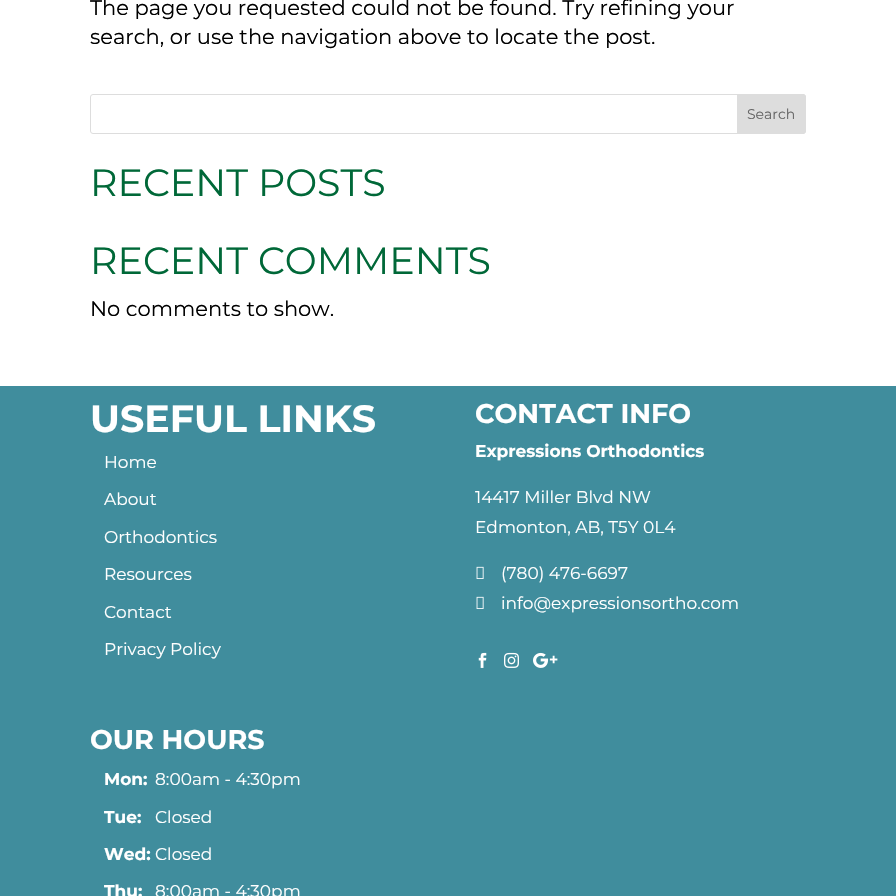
void draw(SkCanvas* c) {
SkPaint p;
p.setAntiAlias(true);
auto F=[&](const char* family, int weight, float size, bool italic = false){SkFontStyle style(weight, SkFontStyle::kNormal_Width,italic ? SkFontStyle::kItalic_Slant : SkFontStyle::kUpright_Slant);SkFont result(fontMgr->matchFamilyStyle(family, style), size);result.setSubpixel(true);return result;};
auto T=[&](const char* s, float x, float y, const SkFont& font){c->drawString(s, x, y, font, p);};
auto R=[&](float x, float y, float w, float h){c->drawRect(SkRect::MakeXYWH(x, y, w, h), p);};
auto I=[&](const char* path, float x, float y, float w, float h){auto image = SkImages::DeferredFromEncodedData(SkData::MakeFromFileName(path));c->drawImageRect(image, SkRect::MakeXYWH(x, y, w, h), SkSamplingOptions());};
auto P=[&](const char* data, bool evenOdd = false){SkPath result = *SkParsePath::FromSVGString(data);if (evenOdd) result.setFillType(SkPathFillType::kEvenOdd);return result;};
c->clear(0xffffffff);
auto f1 = F("Montserrat",400,21);
p.setColor(0xff000000);
T("The page you requested could not be found. Try refining your",90,15,f1);
T("search, or use the navigation above to locate the post.",90,44,f1);
p.setStroke(true);
p.setStrokeWidth(1);
p.setColor(0xffdddddd);
c->drawRoundRect(SkRect::MakeXYWH(90.5,94.5,715,39),2.5,2.5,p);
p.setStroke(false);
c->drawPath(P("M737.5 94.5h65.5c1.5 0 2.5 1 2.5 2.5v34c0 1.5-1 2.5-2.5 2.5h-65.5z"),p);
p.setStroke(true);
c->drawPath(P("M737.5 94.5h65.5c1.5 0 2.5 1 2.5 2.5v34c0 1.5-1 2.5-2.5 2.5h-65.5z"),p);
auto f2 = F("Montserrat",400,14);
p.setStroke(false);
p.setColor(0xff666666);
T("Search",747,119,f2);
auto f3 = F("Montserrat",400,38);
p.setColor(0xff006838);
T("RECENT POSTS",90,196,f3);
T("RECENT COMMENTS",90,274,f3);
p.setColor(0xff000000);
T("No comments to show.",90,316,f1);
p.setColor(0xff408d9d);
R(0,386,896,510);
auto f4 = F("Montserrat",700,38);
p.setColor(0xffffffff);
T("USEFUL LINKS",90,432,f4);
auto f5 = F("Montserrat",400,17);
T("Home",104,468,f5);
T("About",104,505,f5);
T("Orthodontics",104,543,f5);
T("Resources",104,580,f5);
T("Contact",104,618,f5);
T("Privacy Policy",104,655,f5);
auto f6 = F("Montserrat",700,27);
T("CONTACT INFO",475,423,f6);
auto f7 = F("Montserrat",700,17);
T("Expressions Orthodontics",475,457,f7);
T("14417 Miller Blvd NW",475,503,f5);
T("Edmonton, AB, T5Y 0L4",475,533,f5);
I("1.png",476,566,8,13);
T("(780) 476-6697",501,579,f5);
I("1.png",476,596,8,13);
T("info@expressionsortho.com",501,609,f5);
I("2.png",478,652,9,16);
I("3.png",504,652,15,16);
I("4.png",533,652,25,16);
T("OUR HOURS",90,749,f6);
T("Mon:",104,785,f7);
T("8:00am - 4:30pm",155,785,f5);
T("Tue:",104,823,f7);
T("Closed",155,823,f5);
T("Wed:",104,860,f7);
T("Closed",155,860,f5);
T("Thu:",104,897,f7);
T("8:00am - 4:30pm",155,897,f5);
}
